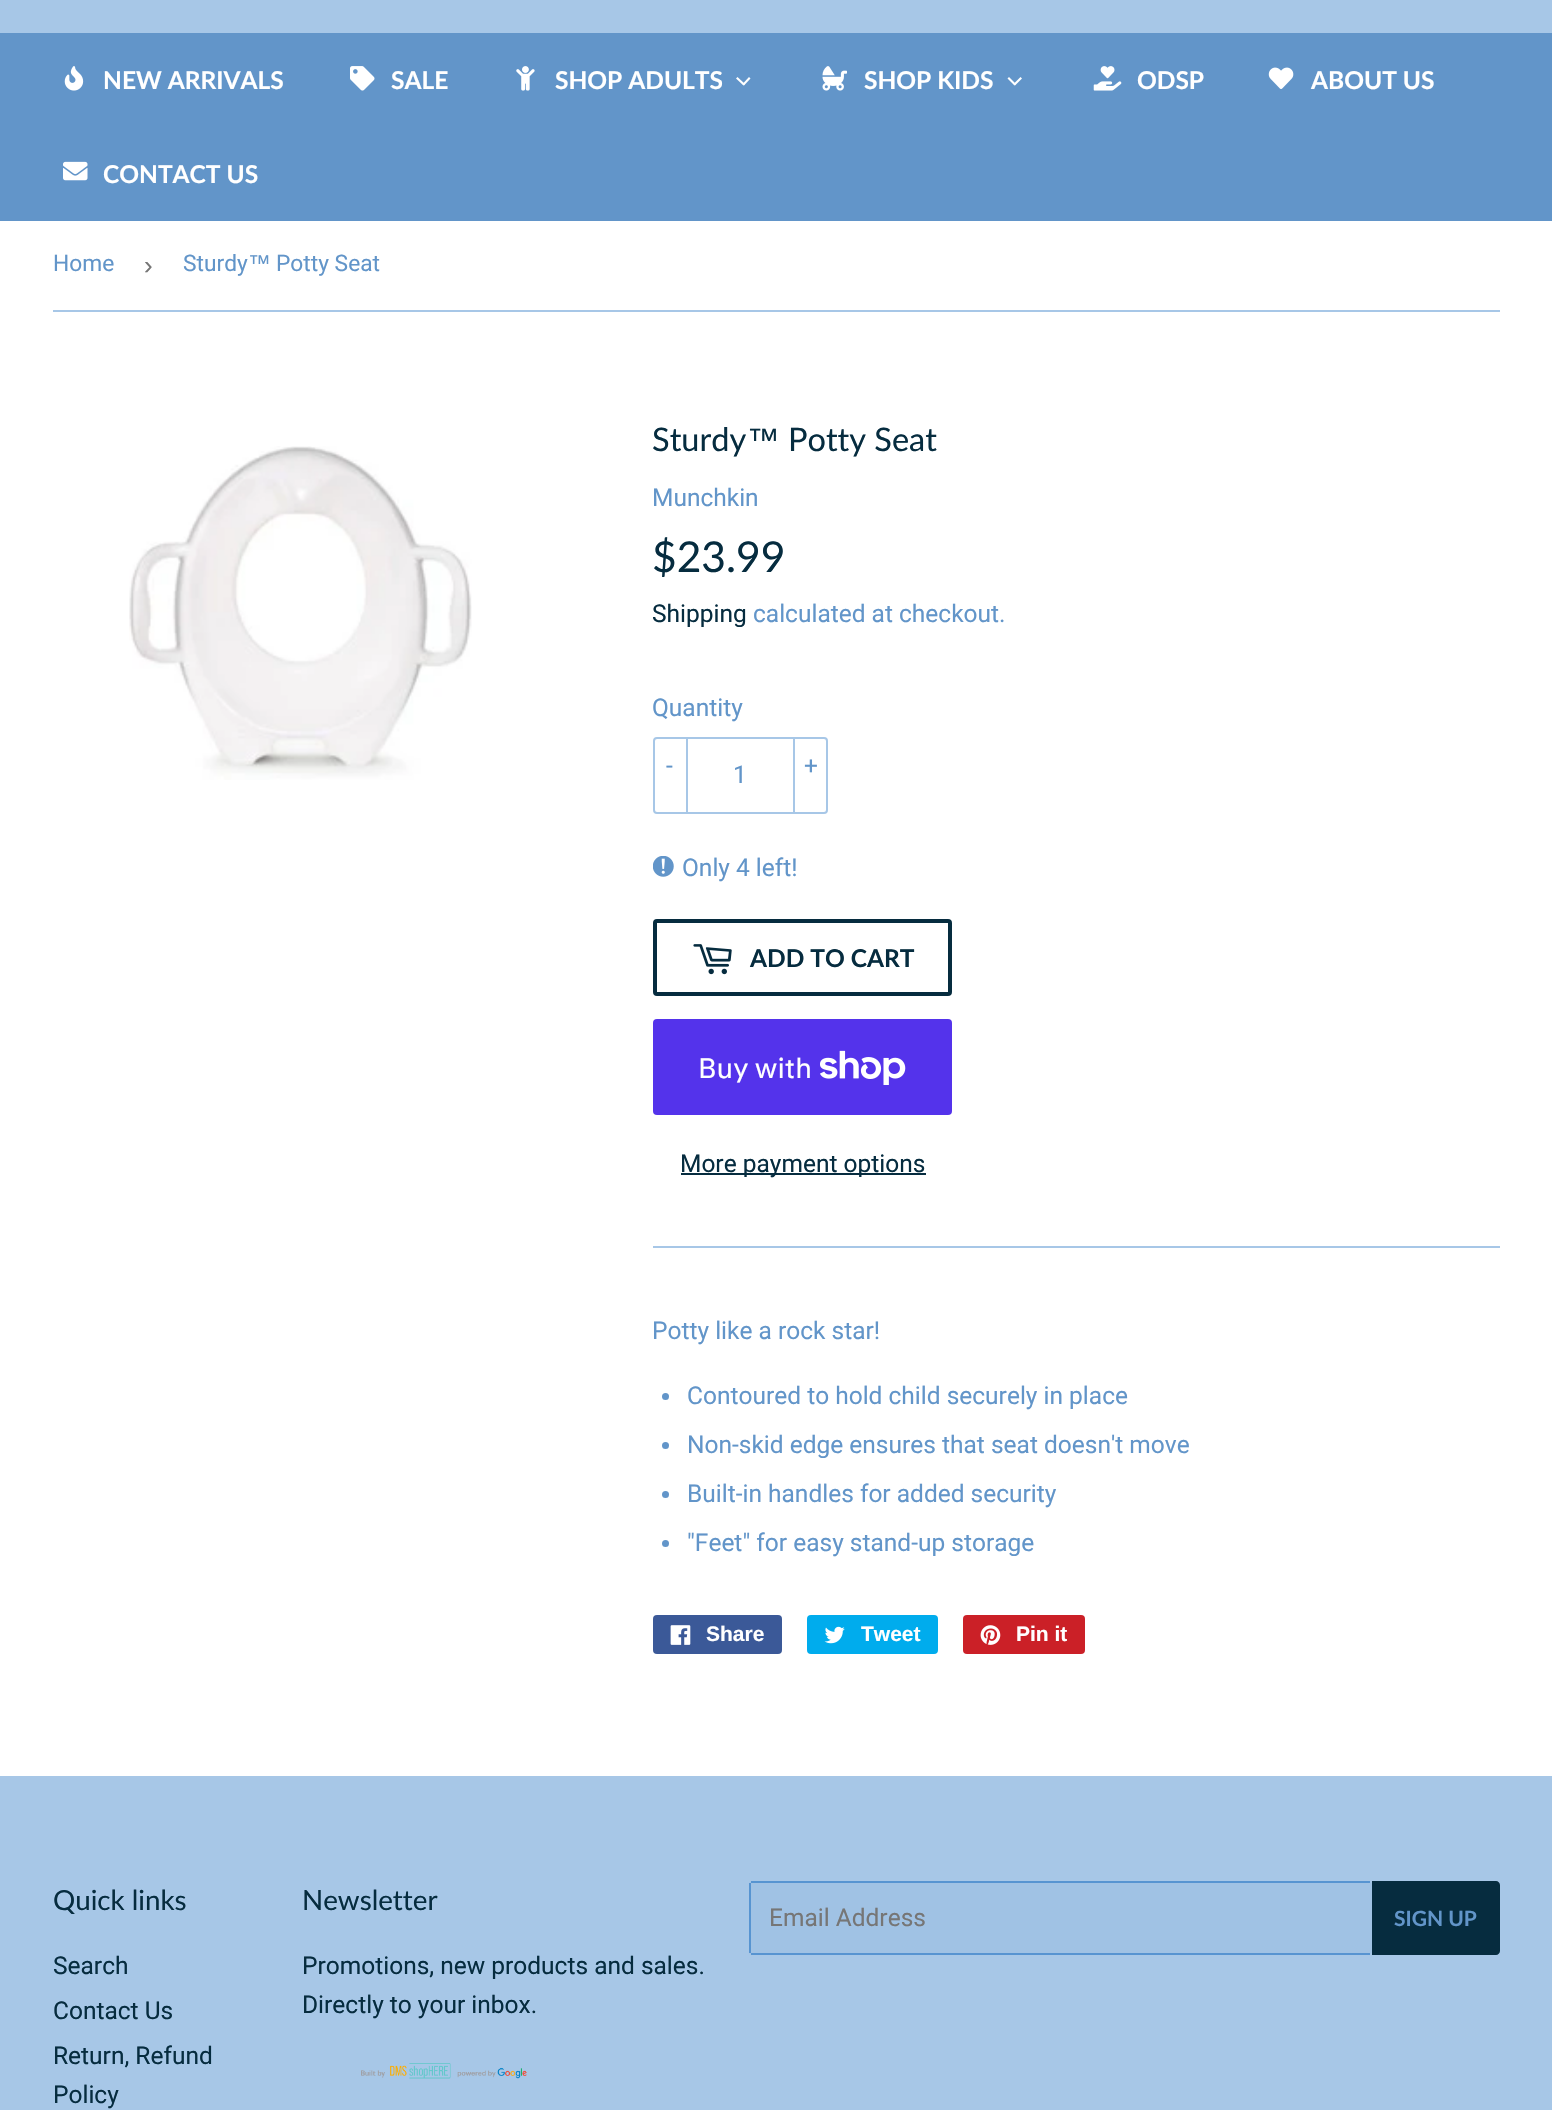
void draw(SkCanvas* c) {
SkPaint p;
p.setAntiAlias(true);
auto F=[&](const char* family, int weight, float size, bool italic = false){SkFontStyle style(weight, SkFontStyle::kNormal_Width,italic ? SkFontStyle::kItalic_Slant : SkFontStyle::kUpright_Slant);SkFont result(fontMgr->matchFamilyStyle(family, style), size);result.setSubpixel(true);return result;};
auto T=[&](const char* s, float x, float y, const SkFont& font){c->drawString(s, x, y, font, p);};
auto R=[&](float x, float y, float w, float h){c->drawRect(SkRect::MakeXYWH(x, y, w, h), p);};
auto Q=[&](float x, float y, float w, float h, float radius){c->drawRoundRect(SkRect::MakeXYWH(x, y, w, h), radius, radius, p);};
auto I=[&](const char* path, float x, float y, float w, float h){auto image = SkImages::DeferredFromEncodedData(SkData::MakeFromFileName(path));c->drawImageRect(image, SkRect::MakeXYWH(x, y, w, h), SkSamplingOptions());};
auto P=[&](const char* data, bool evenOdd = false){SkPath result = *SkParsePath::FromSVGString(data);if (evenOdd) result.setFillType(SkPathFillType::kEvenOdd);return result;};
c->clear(0xffffffff);
p.setColor(0xffa7c7e7);
R(0,0,1552,33);
p.setColor(0xff6295c9);
R(0,33,1552,188);
I("1.png",64,66,20,25);
auto f1 = F("Lato",700,24.5);
p.setColor(0xffffffff);
T("NEW ARRIVALS",103,89,f1);
I("2.png",350,66,25,25);
T("SALE",391,89,f1);
I("3.png",516,66,19,25);
T("SHOP ADULTS",555,89,f1);
c->drawPath(P("M749 77l1.5 1.5l-6.5 7l-1.5-1.5z"),p);
c->drawPath(P("M737.5 77l7.5 7l-1.5 1.5l-7.5-7z"),p);
I("4.png",822,66,25,25);
T("SHOP KIDS",864,89,f1);
c->drawPath(P("M1020.5 77l1.5 1.5l-7 7l-1.5-1.5z"),p);
c->drawPath(P("M1009 77l7 7l-1.5 1.5l-7-7z"),p);
I("5.png",1093,66,29,25);
T("ODSP",1137,89,f1);
I("6.png",1268,67,26,22);
T("ABOUT US",1311,89,f1);
I("7.png",63,161,25,20);
T("CONTACT US",103,183,f1);
p.setColor(0xffa7c7e7);
R(53,310,1447,2);
auto f2 = F("Roboto",400,22.75);
p.setColor(0xff6295c9);
T("Home",53,271,f2);
auto f3 = F("Liberation Sans",400,26);
p.setColor(0xff767676);
T("›",144,274,f3);
p.setColor(0xff6295c9);
T("Sturdy",183,271,f2);
auto f4 = F("Liberation Sans",400,22.75);
T("™",248,271,f4);
T("Potty Seat",276,271,f2);
I("8.png",129,446,343,334);
auto f5 = F("Lato",400,32.5);
p.setColor(0xff062c3f);
T("Sturdy",652,451,f5);
auto f6 = F("Liberation Sans",400,32.5);
T("™",747,451,f6);
T("Potty Seat",788,451,f5);
auto f7 = F("Roboto",400,24.5);
p.setColor(0xff6295c9);
T("Munchkin",652,506,f7);
auto f8 = F("Lato",400,42.5);
p.setColor(0xff062c3f);
T("$23.99",652,572,f8);
T("Shipping",652,622,f7);
p.setColor(0xff6295c9);
T("calculated at checkout.",753,622,f7);
T("Quantity",652,716,f7);
p.setStroke(true);
p.setStrokeWidth(2);
p.setColor(0xffa7c7e7);
c->drawRoundRect(SkRect::MakeXYWH(654,738,173,75),3,3,p);
p.setStroke(false);
R(686,737,2,77);
p.setColor(0xff6295c9);
T("-",666,774,f7);
T("1",733,783,f7);
p.setColor(0xffa7c7e7);
R(793,737,2,77);
p.setColor(0xff6295c9);
T("+",804,774,f7);
I("9.png",653,856,21,21);
T("Only 4 left!",682,876,f7);
p.setStroke(true);
p.setStrokeWidth(4);
p.setColor(0xff062c3f);
c->drawRoundRect(SkRect::MakeXYWH(655,921,295,73),2,2,p);
I("10.png",693,944,39,31);
p.setStroke(false);
T("ADD TO CART",750,967,f1);
p.setColor(0xff5433eb);
Q(653,1019,299,96,4);
auto f9 = F("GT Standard",400,28);
p.setColor(0xffffffff);
T("Buy with",698,1078,f9);
I("11.png",820,1050,86,35);
p.setColor(0xff062c3f);
R(681,1173,245,2);
T("More payment options",680,1172,f7);
p.setColor(0xffa7c7e7);
R(653,1246,847,2);
p.setColor(0xff6295c9);
T("Potty like a rock star!",652,1339,f7);
c->drawCircle(665.5,1396.5,3.5,p);
T("Contoured to hold child securely in place",687,1404,f7);
c->drawCircle(665.5,1445.5,3.5,p);
T("Non-skid edge ensures that seat doesn't move",687,1453,f7);
c->drawCircle(665.5,1494.5,3.5,p);
T("Built-in handles for added security",687,1502,f7);
c->drawCircle(665.5,1543.5,3.5,p);
T("\"Feet\" for easy stand-up storage",687,1551,f7);
p.setColor(0xff3b5998);
Q(653,1615,129,39,4);
I("12.png",670,1625,21,20);
auto f10 = F("Liberation Sans",700,21);
p.setColor(0xffffffff);
T("Share",706,1641,f10);
p.setColor(0xff00aced);
Q(807,1615,131,39,4);
I("13.png",824,1626,21,18);
p.setColor(0xffffffff);
T("Tweet",861,1641,f10);
p.setColor(0xffcb2027);
Q(963,1615,122,39,4);
I("14.png",980,1625,21,20);
p.setColor(0xffffffff);
T("Pin it",1016,1641,f10);
p.setColor(0xffa7c7e7);
R(0,1776,1552,334);
auto f11 = F("Lato",400,27.75);
p.setColor(0xff062c3f);
T("Quick links",53,1910,f11);
T("Search",53,1974,f7);
T("Contact Us",53,2019,f7);
T("Return, Refund",53,2064,f7);
T("Policy",53,2103,f7);
T("Newsletter",302,1910,f11);
T("Promotions, new products and sales.",302,1974,f7);
T("Directly to your inbox.",302,2013,f7);
I("15.png",361,2063,166,16);
p.setColor(0xffa0c2e4);
Q(749,1881,623,74,4);
p.setColor(0xff5794d1);
R(751,1881,619,2);
R(751,1953,619,2);
R(749,1883,2,70);
p.setColor(0xff767676);
T("Email Address",769,1926,f7);
p.setColor(0xff062c3f);
c->drawPath(P("M1372 1881h124c2 0 4 2 4 4v66c0 2-2 4-4 4h-124z"),p);
auto f12 = F("Lato",700,21);
p.setColor(0xff6295c9);
T("SIGN UP",1394,1926,f12);
}
